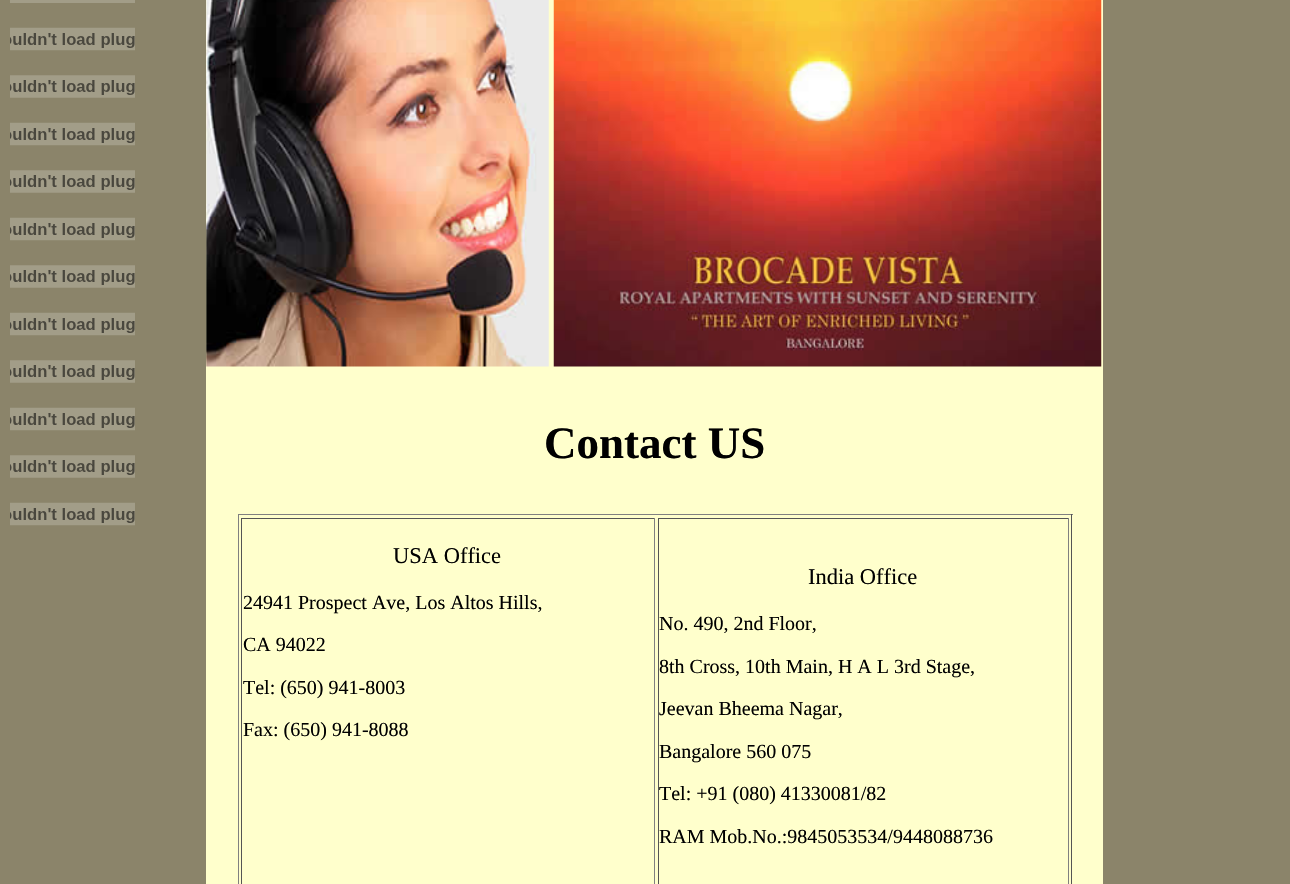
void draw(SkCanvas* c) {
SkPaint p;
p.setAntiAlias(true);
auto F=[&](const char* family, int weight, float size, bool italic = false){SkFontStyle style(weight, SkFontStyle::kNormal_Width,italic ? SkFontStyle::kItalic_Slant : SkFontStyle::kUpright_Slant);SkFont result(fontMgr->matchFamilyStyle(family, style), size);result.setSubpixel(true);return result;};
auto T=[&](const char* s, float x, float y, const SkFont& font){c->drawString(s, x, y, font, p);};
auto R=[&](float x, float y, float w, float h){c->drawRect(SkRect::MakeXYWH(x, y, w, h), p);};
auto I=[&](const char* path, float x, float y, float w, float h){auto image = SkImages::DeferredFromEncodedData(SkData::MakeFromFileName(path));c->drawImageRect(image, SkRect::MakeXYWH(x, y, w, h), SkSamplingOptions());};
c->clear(0xff8b846a);
p.setColor(0xffa29d88);
R(10,0,125,3);
I("1.png",10,27,125,24);
I("2.png",10,75,125,23);
I("1.png",10,122,125,24);
I("2.png",10,170,125,23);
I("1.png",10,217,125,24);
I("2.png",10,265,125,23);
I("1.png",10,312,125,24);
I("2.png",10,360,125,23);
I("1.png",10,407,125,24);
I("2.png",10,455,125,23);
p.setColor(0xffffffcc);
R(206,0,897,884);
I("3.png",206,0,343,367);
I("4.png",553,0,549,367);
auto f1 = F("Liberation Serif",700,45);
p.setColor(0xff000000);
T("Contact US",544,458,f1);
p.setColor(0xff808080);
R(238,514,835,1);
p.setColor(0xff555555);
R(1071,514,1,370);
p.setColor(0xff808080);
R(238,514,1,370);
p.setColor(0xff555555);
R(241,518,414,1);
p.setColor(0xff808080);
R(654,518,1,366);
p.setColor(0xff555555);
R(241,518,1,366);
auto f2 = F("Liberation Serif",400,22.5);
p.setColor(0xff000000);
T("USA Office",393,563,f2);
auto f3 = F("Liberation Serif",400,20);
T("24941 Prospect Ave, Los Altos Hills,",243,609,f3);
T("CA 94022",243,651,f3);
T("Tel: (650) 941-8003",243,694,f3);
T("Fax: (650) 941-8088",243,736,f3);
p.setColor(0xff555555);
R(658,518,411,1);
p.setColor(0xff808080);
R(1068,518,1,366);
p.setColor(0xff555555);
R(658,518,1,366);
p.setColor(0xff000000);
T("India Office",808,584,f2);
T("No. 490, 2nd Floor,",659,630,f3);
T("8th Cross, 10th Main, H A L 3rd Stage,",659,673,f3);
T("Jeevan Bheema Nagar,",659,715,f3);
T("Bangalore 560 075",659,758,f3);
T("Tel: +91 (080) 41330081/82",659,800,f3);
T("RAM Mob.No.:9845053534/9448088736",659,843,f3);
I("1.png",10,502,125,24);
}
